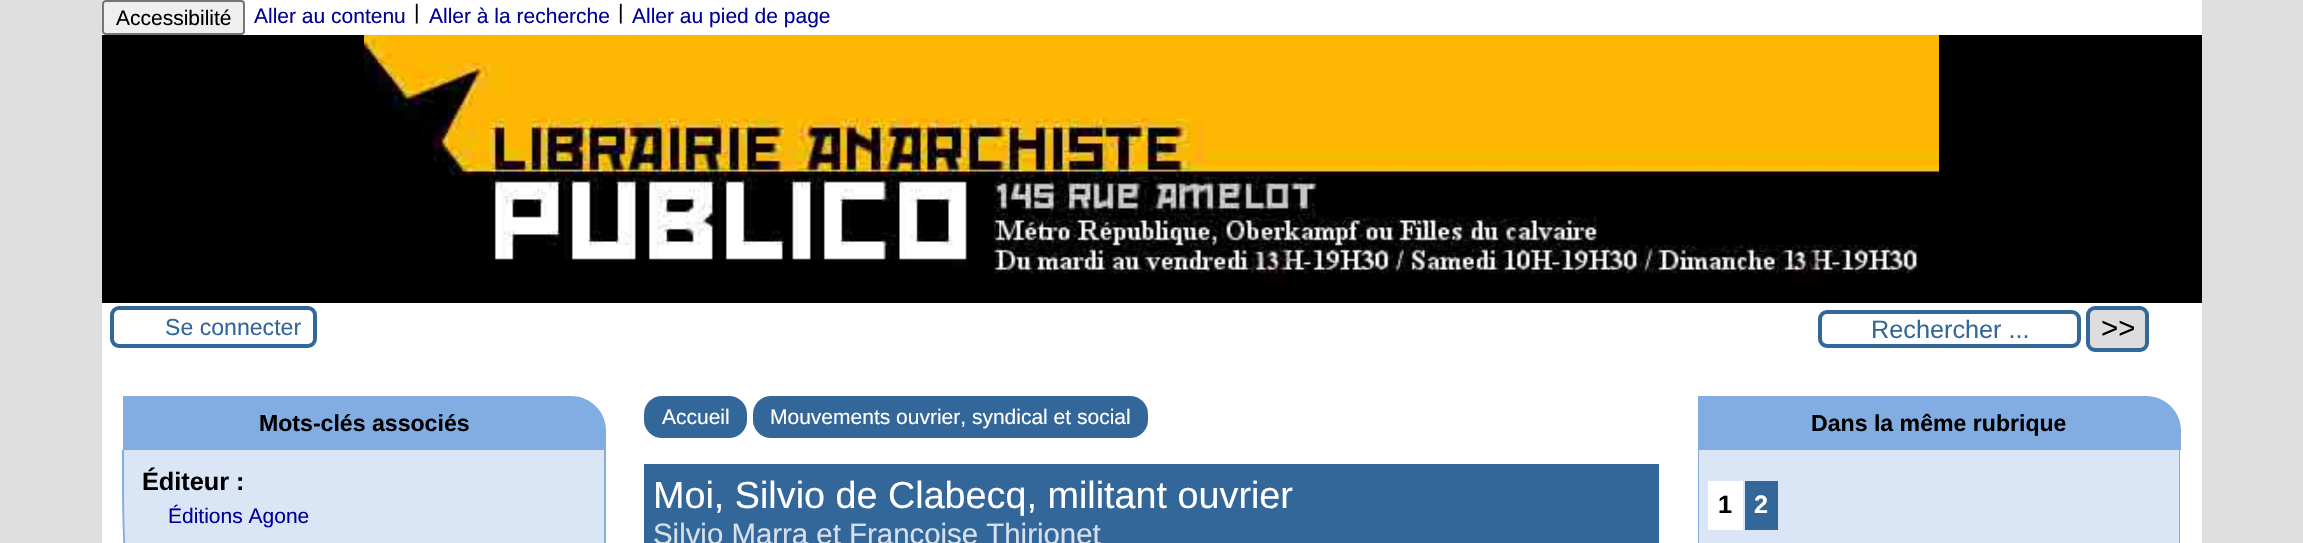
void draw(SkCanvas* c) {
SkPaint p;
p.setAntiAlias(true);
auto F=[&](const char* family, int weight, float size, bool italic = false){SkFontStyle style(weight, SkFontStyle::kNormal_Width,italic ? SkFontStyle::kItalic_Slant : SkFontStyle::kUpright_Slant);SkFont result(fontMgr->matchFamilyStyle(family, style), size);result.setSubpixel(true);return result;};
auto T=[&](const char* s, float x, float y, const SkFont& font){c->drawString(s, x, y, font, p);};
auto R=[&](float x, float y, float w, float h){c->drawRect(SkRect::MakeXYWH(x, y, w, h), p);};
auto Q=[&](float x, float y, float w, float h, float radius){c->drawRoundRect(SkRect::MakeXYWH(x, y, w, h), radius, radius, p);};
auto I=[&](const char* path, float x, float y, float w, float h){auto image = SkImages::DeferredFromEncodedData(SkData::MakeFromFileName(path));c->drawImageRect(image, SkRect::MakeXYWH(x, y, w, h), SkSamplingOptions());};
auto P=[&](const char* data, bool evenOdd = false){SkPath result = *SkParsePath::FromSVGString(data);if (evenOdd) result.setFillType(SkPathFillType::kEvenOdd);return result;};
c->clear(0xffdfdfdf);
p.setColor(0xffffffff);
R(102,303,2100,240);
p.setColor(0xff000000);
R(102,35,2100,268);
p.setColor(0xffffffff);
R(102,0,2100,35);
p.setColor(0xffefefef);
c->drawRoundRect(SkRect::MakeXYWH(103,1,141,33),3,3,p);
p.setStroke(true);
p.setStrokeWidth(2);
p.setColor(0xff767676);
c->drawRoundRect(SkRect::MakeXYWH(103,1,141,33),3,3,p);
auto f1 = F("Liberation Sans",400,21);
p.setStroke(false);
p.setColor(0xff000000);
T("Accessibilité",116,25,f1);
p.setColor(0xff000099);
T("Aller au contenu",254,23,f1);
p.setColor(0xff000000);
T("|",414,19,f1);
p.setColor(0xff000099);
T("Aller à la recherche",429,23,f1);
p.setColor(0xff000000);
T("|",618,19,f1);
p.setColor(0xff000099);
T("Aller au pied de page",632,23,f1);
I("1.png",364,35,1575,250);
p.setStroke(true);
p.setStrokeWidth(4);
p.setColor(0xff336699);
c->drawRoundRect(SkRect::MakeXYWH(112,308,203,38),7,7,p);
auto f2 = F("Liberation Sans",400,23.1);
p.setStroke(false);
T("Se connecter",165,335,f2);
p.setStroke(true);
c->drawRoundRect(SkRect::MakeXYWH(1820,312,259,34),7,7,p);
auto f3 = F("Liberation Sans",400,25.25);
p.setStroke(false);
T("Rechercher ...",1871,338,f3);
p.setColor(0xffdddddd);
c->drawRoundRect(SkRect::MakeXYWH(2088,308,59,42),7,7,p);
p.setStroke(true);
p.setColor(0xff336699);
c->drawRoundRect(SkRect::MakeXYWH(2088,308,59,42),7,7,p);
auto f4 = F("Liberation Sans",400,29.4);
p.setStroke(false);
p.setColor(0xff000000);
T(">>",2101,338,f4);
p.setColor(0xff82ade2);
c->drawPath(P("M123 396h448c19.5 0 35 15.5 35 35v19h-483z"),p);
auto f5 = F("Liberation Sans",700,23.1);
p.setColor(0xff000000);
T("Mots-clés associés",259,431,f5);
p.setColor(0xffdae6f6);
c->drawPath(P("M124 450h480v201h-464c-9 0-16-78-16-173z"),p);
p.setColor(0xff82ade2);
c->drawPath(P("M122 450h484v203h-466c-10 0-18-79-18-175zm2 0h480v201h-464c-9 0-16-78-16-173z",true),p);
auto f6 = F("Liberation Sans",700,25.25);
p.setColor(0xff000000);
T("Éditeur :",142,490,f6);
p.setColor(0xff000099);
T("Éditions Agone",168,523,f1);
p.setColor(0xff336699);
Q(644,396,103,42,18);
p.setColor(0xffffffff);
T("Accueil",662,424,f1);
p.setColor(0xff336699);
Q(753,396,395,42,18);
p.setColor(0xffffffff);
T("Mouvements ouvrier, syndical et social",770,424,f1);
p.setColor(0xff336699);
R(644,464,1015,79);
auto f7 = F("Liberation Sans",400,37.75);
p.setColor(0xffffffff);
T("Moi, Silvio de Clabecq, militant ouvrier",653,508,f7);
p.setColor(0xffd6e0eb);
T("Silvio Marra et Françoise Thirionet",653,544,f4);
p.setColor(0xff82ade2);
c->drawPath(P("M1698 396h448c19.5 0 35 15.5 35 35v19h-483z"),p);
p.setColor(0xff000000);
T("Dans la même rubrique",1811,431,f5);
p.setColor(0xffdae6f6);
c->drawPath(P("M1699 450h480v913h-464c-9 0-16-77-16-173z"),p);
p.setColor(0xff82ade2);
c->drawPath(P("M1698 450h482v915h-465c-10 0-17-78-17-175zm1 0h480v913h-464c-9 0-16-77-16-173z",true),p);
p.setColor(0xffffffff);
R(1708,481,35,49);
p.setColor(0xff000000);
T("1",1718,513,f6);
p.setColor(0xff336699);
R(1745,481,33,49);
p.setColor(0xffffffff);
T("2",1754,513,f6);
}
